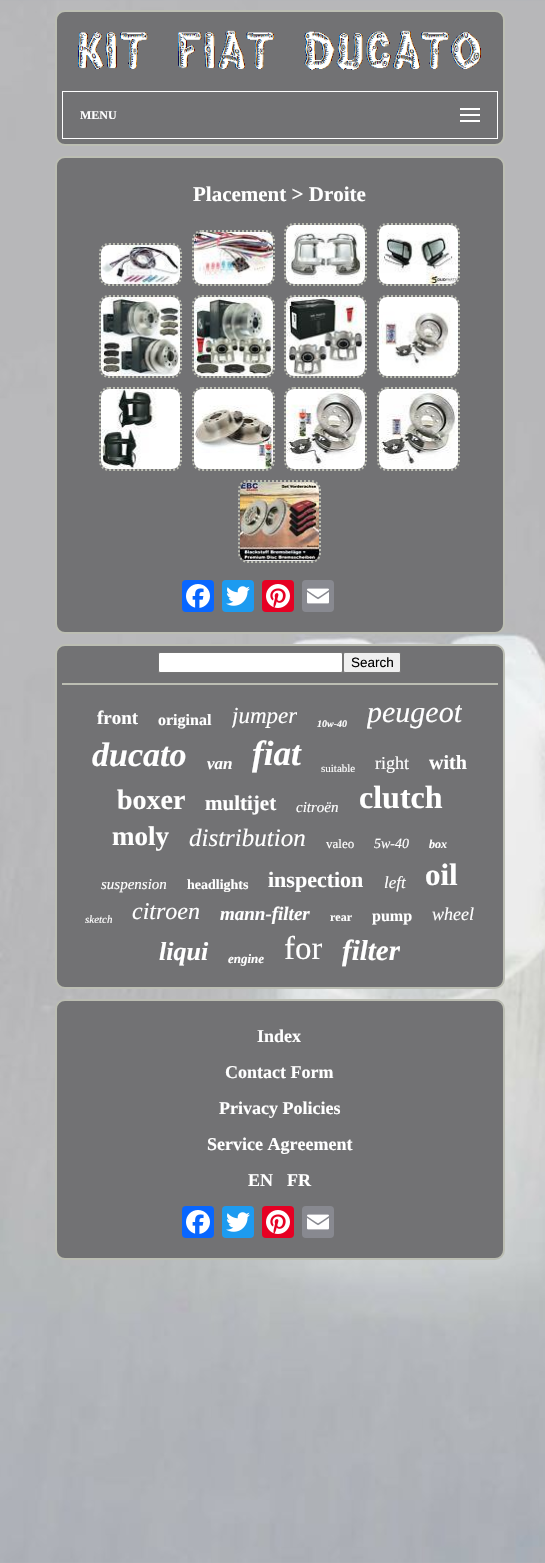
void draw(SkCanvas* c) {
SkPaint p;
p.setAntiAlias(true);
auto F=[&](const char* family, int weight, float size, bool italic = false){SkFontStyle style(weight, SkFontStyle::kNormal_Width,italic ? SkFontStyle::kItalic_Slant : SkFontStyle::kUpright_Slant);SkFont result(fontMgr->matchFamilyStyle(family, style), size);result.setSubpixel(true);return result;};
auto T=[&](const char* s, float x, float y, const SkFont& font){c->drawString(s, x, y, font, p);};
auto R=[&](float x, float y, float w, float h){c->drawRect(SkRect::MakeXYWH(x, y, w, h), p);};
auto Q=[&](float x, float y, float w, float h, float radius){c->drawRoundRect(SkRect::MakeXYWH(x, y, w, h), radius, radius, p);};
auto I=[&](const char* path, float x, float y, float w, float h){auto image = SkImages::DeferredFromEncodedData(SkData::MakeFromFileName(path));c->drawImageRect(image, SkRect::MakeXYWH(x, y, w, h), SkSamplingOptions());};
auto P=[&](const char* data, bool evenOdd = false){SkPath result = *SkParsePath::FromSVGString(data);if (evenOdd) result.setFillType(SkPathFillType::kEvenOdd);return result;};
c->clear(0xffffffff);
I("1.png",0,0,545,1563);
p.setColor(0xff727274);
c->drawRoundRect(SkRect::MakeXYWH(56,11,448,134),9,9,p);
p.setStroke(true);
p.setStrokeWidth(2);
p.setColor(0xffbcbeb3);
c->drawRoundRect(SkRect::MakeXYWH(56,11,448,134),9,9,p);
I("2.png",78,30,403,40);
p.setStrokeWidth(1);
p.setColor(0xffffffff);
c->drawRect(SkRect::MakeXYWH(62.5,91.5,435,47),p);
p.setStroke(false);
R(460,108,20,2);
auto f1 = F("Liberation Serif",700,12);
T("MENU",80,119,f1);
R(460,114,20,2);
R(460,120,20,2);
p.setColor(0xff727274);
c->drawRoundRect(SkRect::MakeXYWH(56,157,448,476),9,9,p);
p.setStroke(true);
p.setStrokeWidth(2);
p.setColor(0xffbcbeb3);
c->drawRoundRect(SkRect::MakeXYWH(56,157,448,476),9,9,p);
auto f2 = F("Liberation Serif",700,21);
p.setStroke(false);
p.setColor(0xffffffff);
T("Placement > Droite",193,201,f2);
p.setStroke(true);
p.setColor(0xffbcbeb3);
p.setPathEffect(SkDashPathEffect::Make({{2,2}}, 0));
c->drawPath(P("M109 244h63c5 0 9 4 9 9v23c0 5-4 9-9 9h-63c-5 0-9-4-9-9v-23c0-5 4-9 9-9z"),p);
p.setPathEffect(nullptr);
I("3.png",101,245,79,39);
p.setPathEffect(SkDashPathEffect::Make({{2,2}}, 0));
c->drawPath(P("M202 231h63c5 0 9 4 9 9v36c0 5-4 9-9 9h-63c-5 0-9-4-9-9v-36c0-5 4-9 9-9z"),p);
p.setPathEffect(nullptr);
I("4.png",194,232,79,52);
p.setPathEffect(SkDashPathEffect::Make({{2,2}}, 0));
c->drawPath(P("M294 224h63c5 0 9 4 9 9v43c0 5-4 9-9 9h-63c-5 0-9-4-9-9v-43c0-5 4-9 9-9z"),p);
p.setPathEffect(nullptr);
I("5.png",286,225,79,59);
p.setPathEffect(SkDashPathEffect::Make({{2,2}}, 0));
c->drawPath(P("M387 224h63c5 0 9 4 9 9v43c0 5-4 9-9 9h-63c-5 0-9-4-9-9v-43c0-5 4-9 9-9z"),p);
p.setPathEffect(nullptr);
I("6.png",379,225,79,59);
p.setPathEffect(SkDashPathEffect::Make({{2,2}}, 0));
c->drawPath(P("M109 296h63c5 0 9 4 9 9v63c0 5-4 9-9 9h-63c-5 0-9-4-9-9v-63c0-5 4-9 9-9z"),p);
p.setPathEffect(nullptr);
I("7.png",101,297,79,79);
p.setPathEffect(SkDashPathEffect::Make({{2,2}}, 0));
c->drawPath(P("M202 296h63c5 0 9 4 9 9v63c0 5-4 9-9 9h-63c-5 0-9-4-9-9v-63c0-5 4-9 9-9z"),p);
p.setPathEffect(nullptr);
I("8.png",194,297,79,79);
p.setPathEffect(SkDashPathEffect::Make({{2,2}}, 0));
c->drawPath(P("M294 296h63c5 0 9 4 9 9v63c0 5-4 9-9 9h-63c-5 0-9-4-9-9v-63c0-5 4-9 9-9z"),p);
p.setPathEffect(nullptr);
I("9.png",286,297,79,79);
p.setPathEffect(SkDashPathEffect::Make({{2,2}}, 0));
c->drawPath(P("M387 296h63c5 0 9 4 9 9v63c0 5-4 9-9 9h-63c-5 0-9-4-9-9v-63c0-5 4-9 9-9z"),p);
p.setPathEffect(nullptr);
I("10.png",379,297,79,79);
p.setPathEffect(SkDashPathEffect::Make({{2,2}}, 0));
c->drawPath(P("M109 388h63c5 0 9 4 9 9v64c0 5-4 9-9 9h-63c-5 0-9-4-9-9v-64c0-5 4-9 9-9z"),p);
p.setPathEffect(nullptr);
I("11.png",101,389,79,80);
p.setPathEffect(SkDashPathEffect::Make({{2,2}}, 0));
c->drawPath(P("M202 388h63c5 0 9 4 9 9v64c0 5-4 9-9 9h-63c-5 0-9-4-9-9v-64c0-5 4-9 9-9z"),p);
p.setPathEffect(nullptr);
I("12.png",194,389,79,80);
p.setPathEffect(SkDashPathEffect::Make({{2,2}}, 0));
c->drawPath(P("M294 388h63c5 0 9 4 9 9v64c0 5-4 9-9 9h-63c-5 0-9-4-9-9v-64c0-5 4-9 9-9z"),p);
p.setPathEffect(nullptr);
I("13.png",286,389,79,80);
p.setPathEffect(SkDashPathEffect::Make({{2,2}}, 0));
c->drawPath(P("M387 388h63c5 0 9 4 9 9v64c0 5-4 9-9 9h-63c-5 0-9-4-9-9v-64c0-5 4-9 9-9z"),p);
p.setPathEffect(nullptr);
I("14.png",379,389,79,80);
p.setPathEffect(SkDashPathEffect::Make({{2,2}}, 0));
c->drawPath(P("M248 481h63c5 0 9 4 9 9v63c0 5-4 9-9 9h-63c-5 0-9-4-9-9v-63c0-5 4-9 9-9z"),p);
p.setPathEffect(nullptr);
I("15.png",240,482,79,79);
p.setStroke(false);
p.setColor(0xff0866ff);
Q(182,580,32,32,4);
I("16.png",186,584,24,24);
p.setColor(0xff1d9bf0);
Q(222,580,32,32,4);
I("17.png",226,586,24,20);
p.setColor(0xffe60023);
Q(262,580,32,32,4);
I("18.png",266,584,24,24);
p.setColor(0xff888990);
Q(302,580,32,32,4);
I("19.png",307,588,22,16);
p.setColor(0xff727274);
c->drawRoundRect(SkRect::MakeXYWH(56,645,448,343),9,9,p);
p.setStroke(true);
p.setColor(0xffbcbeb3);
c->drawRoundRect(SkRect::MakeXYWH(56,645,448,343),9,9,p);
p.setStroke(false);
p.setColor(0xffffffff);
c->drawRoundRect(SkRect::MakeXYWH(158.5,652.5,184,20),1.5,1.5,p);
p.setStroke(true);
p.setStrokeWidth(1);
p.setColor(0xff767676);
c->drawRoundRect(SkRect::MakeXYWH(158.5,652.5,184,20),1.5,1.5,p);
p.setStroke(false);
p.setColor(0xffefefef);
c->drawRoundRect(SkRect::MakeXYWH(343.5,652.5,57,20),1.5,1.5,p);
p.setStroke(true);
p.setColor(0xff767676);
c->drawRoundRect(SkRect::MakeXYWH(343.5,652.5,57,20),1.5,1.5,p);
auto f3 = F("Liberation Sans",400,13.5);
p.setStroke(false);
p.setColor(0xff000000);
T("Search",351,667,f3);
p.setColor(0xffbcbeb3);
R(62,683,436,2);
auto f4 = F("Liberation Serif",700,19);
p.setColor(0xffffffff);
T("front",97,724,f4);
auto f5 = F("Liberation Serif",700,16);
T("original",158,725,f5);
c->save();
c->clipRect(SkRect::MakeXYWH(232,703,65,26));
auto f6 = F("Liberation Serif",400,23,true);
T("jumper",232,723,f6);
c->restore();
auto f7 = F("Liberation Serif",700,10,true);
T("10w-40",317,727,f7);
c->save();
c->clipRect(SkRect::MakeXYWH(367,695,95,34));
auto f8 = F("Liberation Serif",400,30,true);
T("peugeot",367,722,f8);
c->restore();
auto f9 = F("Liberation Serif",700,34,true);
T("ducato",92,766,f9);
auto f10 = F("Liberation Serif",700,17,true);
T("van",207,769,f10);
auto f11 = F("Liberation Serif",700,35,true);
T("fiat",252,765,f11);
auto f12 = F("Liberation Serif",400,11);
T("suitable",321,772,f12);
auto f13 = F("Liberation Serif",400,18);
T("right",375,769,f13);
auto f14 = F("Liberation Serif",700,20);
T("with",429,769,f14);
auto f15 = F("Liberation Serif",700,28);
T("boxer",117,809,f15);
T("multijet",205,810,f2);
auto f16 = F("Liberation Serif",400,15,true);
T("citroën",296,812,f16);
auto f17 = F("Liberation Serif",700,32);
T("clutch",359,808,f17);
auto f18 = F("Liberation Serif",700,27);
T("moly",112,845,f18);
auto f19 = F("Liberation Serif",400,25,true);
T("distribution",189,846,f19);
auto f20 = F("Liberation Serif",400,13);
T("valeo",326,848,f20);
auto f21 = F("Liberation Serif",400,14,true);
T("5w-40",374,848,f21);
auto f22 = F("Liberation Serif",700,12,true);
T("box",429,848,f22);
T("suspension",101,889,f16);
auto f23 = F("Liberation Serif",700,14);
T("headlights",187,889,f23);
auto f24 = F("Liberation Serif",700,22);
T("inspection",268,887,f24);
auto f25 = F("Liberation Serif",400,17,true);
T("left",384,888,f25);
auto f26 = F("Liberation Serif",700,31);
T("oil",425,885,f26);
auto f27 = F("Liberation Serif",400,11,true);
T("sketch",85,923,f27);
auto f28 = F("Liberation Serif",400,24,true);
T("citroen",132,919,f28);
auto f29 = F("Liberation Serif",700,19,true);
T("mann-filter",220,920,f29);
T("rear",330,921,f1);
T("pump",372,921,f5);
auto f30 = F("Liberation Serif",400,18,true);
T("wheel",432,920,f30);
auto f31 = F("Liberation Serif",700,26,true);
T("liqui",159,960,f31);
auto f32 = F("Liberation Serif",700,13,true);
T("engine",228,963,f32);
c->save();
c->clipRect(SkRect::MakeXYWH(284,930,38,37));
auto f33 = F("Liberation Serif",400,33);
T("for",284,959,f33);
c->restore();
c->save();
c->clipRect(SkRect::MakeXYWH(342,934,58,33));
auto f34 = F("Liberation Serif",700,29,true);
T("filter",342,960,f34);
c->restore();
p.setColor(0xff727274);
c->drawRoundRect(SkRect::MakeXYWH(56,1000,448,259),9,9,p);
p.setStroke(true);
p.setStrokeWidth(2);
p.setColor(0xffbcbeb3);
c->drawRoundRect(SkRect::MakeXYWH(56,1000,448,259),9,9,p);
auto f35 = F("Liberation Serif",700,18);
p.setStroke(false);
p.setColor(0xffffffff);
T("Index",257,1042,f35);
T("Contact Form",225,1078,f35);
T("Privacy Policies",219,1114,f35);
T("Service Agreement",207,1150,f35);
T("EN",248,1186,f35);
T("FR",287,1186,f35);
p.setColor(0xff0866ff);
Q(182,1206,32,32,4);
I("16.png",186,1210,24,24);
p.setColor(0xff1d9bf0);
Q(222,1206,32,32,4);
I("17.png",226,1212,24,20);
p.setColor(0xffe60023);
Q(262,1206,32,32,4);
I("18.png",266,1210,24,24);
p.setColor(0xff888990);
Q(302,1206,32,32,4);
I("19.png",307,1214,22,16);
}
